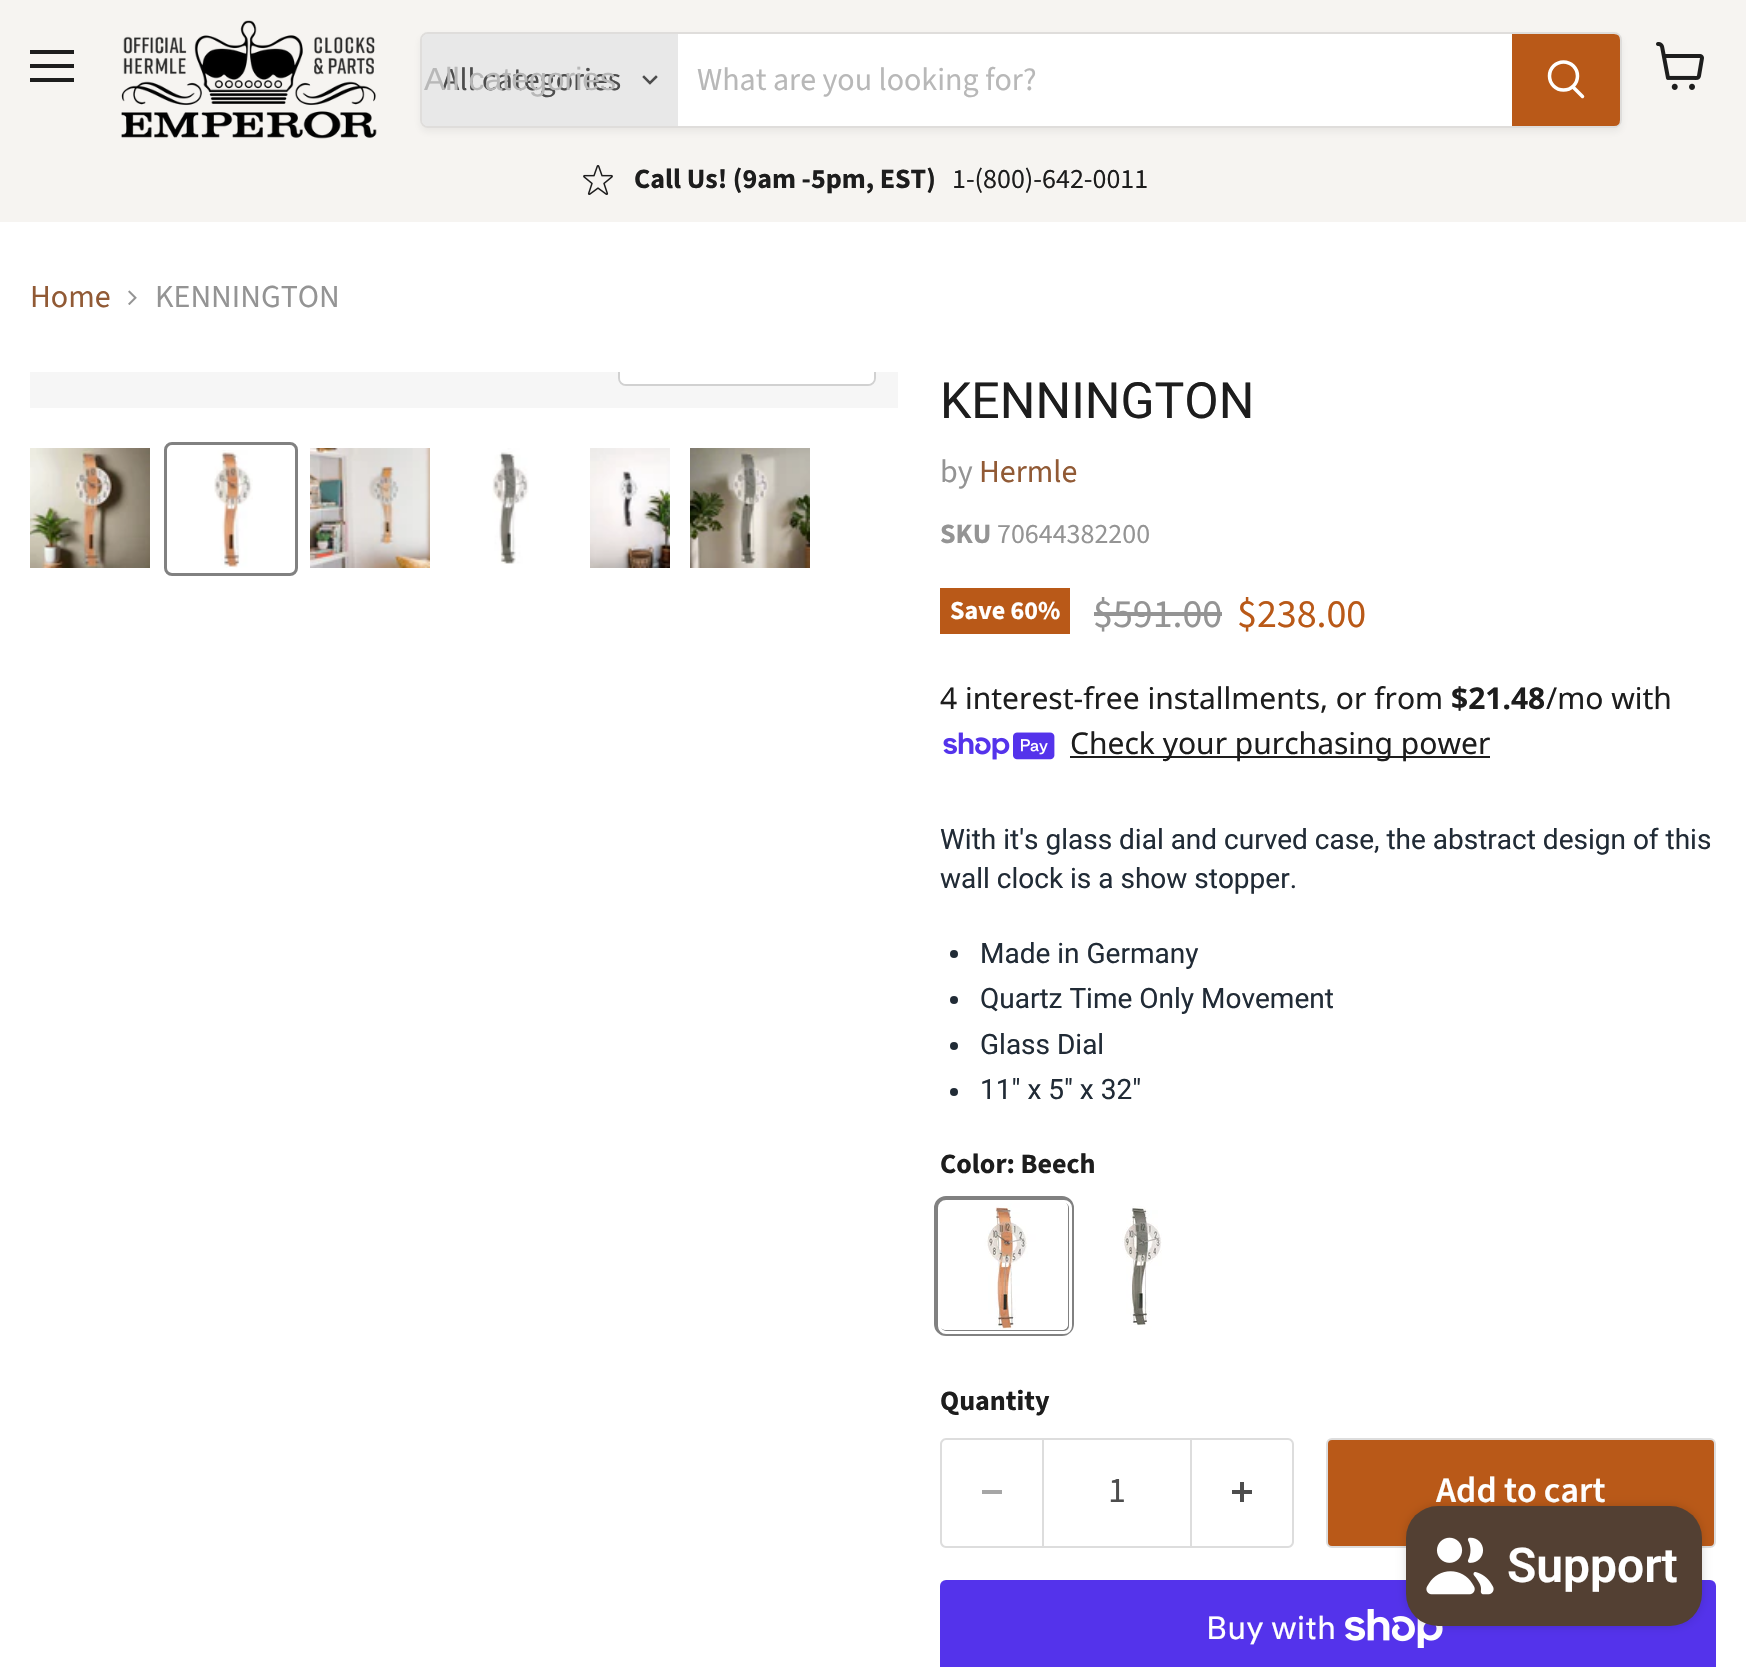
void draw(SkCanvas* c) {
SkPaint p;
p.setAntiAlias(true);
auto F=[&](const char* family, int weight, float size, bool italic = false){SkFontStyle style(weight, SkFontStyle::kNormal_Width,italic ? SkFontStyle::kItalic_Slant : SkFontStyle::kUpright_Slant);SkFont result(fontMgr->matchFamilyStyle(family, style), size);result.setSubpixel(true);return result;};
auto T=[&](const char* s, float x, float y, const SkFont& font){c->drawString(s, x, y, font, p);};
auto R=[&](float x, float y, float w, float h){c->drawRect(SkRect::MakeXYWH(x, y, w, h), p);};
auto Q=[&](float x, float y, float w, float h, float radius){c->drawRoundRect(SkRect::MakeXYWH(x, y, w, h), radius, radius, p);};
auto I=[&](const char* path, float x, float y, float w, float h){auto image = SkImages::DeferredFromEncodedData(SkData::MakeFromFileName(path));c->drawImageRect(image, SkRect::MakeXYWH(x, y, w, h), SkSamplingOptions());};
auto P=[&](const char* data, bool evenOdd = false){SkPath result = *SkParsePath::FromSVGString(data);if (evenOdd) result.setFillType(SkPathFillType::kEvenOdd);return result;};
c->clear(0xffffffff);
p.setColor(0xfff6f4f1);
R(0,0,1746,222);
p.setColor(0xff1d1d1d);
R(30,50,44,4);
R(30,64,44,4);
R(30,78,44,4);
I("1.png",121,20,256,119);
c->save();
c->clipPath(P("M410 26h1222v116h-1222zm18 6h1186c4.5 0 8 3.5 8 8v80c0 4.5-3.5 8-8 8h-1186c-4.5 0-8-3.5-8-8v-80c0-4.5 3.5-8 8-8z",true),true);
p.setColor(0x1c808080);
p.setMaskFilter(SkMaskFilter::MakeBlur(kNormal_SkBlurStyle, 3));
c->drawRoundRect(SkRect::MakeXYWH(420,36,1202,96),8,8,p);
p.setMaskFilter(nullptr);
c->restore();
p.setStroke(true);
p.setStrokeWidth(2);
p.setColor(0x33808080);
c->drawRoundRect(SkRect::MakeXYWH(421,33,1200,94),7,7,p);
p.setStroke(false);
p.setColor(0xffe8e8e8);
c->drawPath(P("M428 34h250v92h-250c-3.5 0-6-2.5-6-6v-80c0-3.5 2.5-6 6-6z"),p);
auto f1 = F("Source Sans Pro",400,32);
p.setColor(0xff4d4d4d);
T("All categories",442,90,f1);
auto f2 = F("Liberation Sans",400,32);
p.setColor(0xffb8b8b8);
T("All categories",424,90,f2);
p.setStroke(true);
p.setStrokeWidth(2.5);
p.setStrokeCap(SkPaint::kSquare_Cap);
p.setColor(0xff4d4d4d);
c->drawPath(P("M650 83l6-6m-6 6l-6-6"),p);
p.setStroke(false);
p.setColor(0xffffffff);
R(678,34,834,92);
p.setColor(0xffb8b8b8);
T("What are you looking for?",697,90,f1);
p.setColor(0xffb95918);
c->drawPath(P("M1513 35h101c3 0 5 2 5 5v80c0 3-2 5-5 5h-101z"),p);
p.setStroke(true);
p.setStrokeWidth(2);
p.setStrokeCap(SkPaint::kButt_Cap);
c->drawPath(P("M1513 35h101c3 0 5 2 5 5v80c0 3-2 5-5 5h-101z"),p);
p.setStrokeWidth(3.5);
p.setStrokeCap(SkPaint::kRound_Cap);
p.setColor(0xffffffff);
c->drawPath(P("M1582.5 96.5l-9.5-9.5"),p);
p.setStrokeCap(SkPaint::kButt_Cap);
c->drawCircle(1563.5,76,14,p);
I("2.png",583,165,30,30);
auto f3 = F("Source Sans Pro",700,28);
p.setStroke(false);
p.setColor(0xff1d1d1d);
T("Call Us! (9am -5pm, EST)",634,188,f3);
auto f4 = F("Source Sans Pro",400,28);
T("1-(800)-642-0011",952,188,f4);
I("3.png",1656,42,48,48);
p.setColor(0xff915a35);
T("Home",30,307,f1);
I("4.png",128,290,9,15);
p.setColor(0xff949494);
T("KENNINGTON",155,307,f1);
p.setColor(0xfff6f6f6);
R(30,372,868,36);
c->save();
c->clipRect(SkRect::MakeXYWH(30,372,868,36));
p.setStroke(true);
p.setStrokeWidth(2);
p.setColor(0xffd1d1d1);
c->drawRoundRect(SkRect::MakeXYWH(619,327,256,58),7,7,p);
c->restore();
p.setStroke(false);
p.setColor(0xe6ffffff);
c->drawPath(P("M620 372h254v6c0 3.5-2.5 6-6 6h-242c-3.5 0-6-2.5-6-6z"),p);
I("5.png",30,448,120,120);
p.setStroke(true);
p.setStrokeWidth(3);
p.setColor(0xff818181);
c->drawRoundRect(SkRect::MakeXYWH(165.5,443.5,131,131),6.5,6.5,p);
I("6.png",214,450,39,118);
I("7.png",310,448,120,120);
I("8.png",492,448,37,116);
I("9.png",590,448,80,120);
I("10.png",690,448,120,120);
auto f5 = F("Roboto",400,50);
p.setStroke(false);
p.setColor(0xff1d1d1d);
T("KENNINGTON",940,418,f5);
p.setColor(0xff949494);
T("by",940,482,f1);
p.setColor(0xff915a35);
T("Hermle",979,482,f1);
p.setColor(0xff949494);
T("SKU",940,543,f3);
T("70644382200",997,543,f4);
p.setColor(0xffb95918);
R(940,588,130,46);
auto f6 = F("Source Sans Pro",700,26);
p.setColor(0xffffffff);
T("Save 60%",950,619,f6);
auto f7 = F("Source Sans Pro",400,40);
p.setColor(0xff949494);
T("$591.00",1093,627,f7);
R(1094,612,128,4);
p.setColor(0xffb95918);
T("$238.00",1237,627,f7);
auto f8 = F("Noto Sans",400,30);
p.setColor(0xff1d1d1d);
T("4 interest-free installments, or from",940,709,f8);
auto f9 = F("Noto Sans",700,30);
T("$21.48",1451,709,f9);
T("/mo with",1546,709,f8);
I("11.png",943,732,112,28);
R(1070,756,420,2);
c->save();
c->clipRect(SkRect::MakeXYWH(1070,720,420,44));
T("Check your purchasing power",1070,754,f8);
c->restore();
auto f10 = F("Roboto",400,28);
p.setColor(0xff212b36);
T("With it's glass dial and curved case, the abstract design of this",940,849,f10);
T("wall clock is a show stopper.",940,888,f10);
c->drawCircle(954,954,4,p);
T("Made in Germany",980,963,f10);
c->drawCircle(954,1000,4,p);
T("Quartz Time Only Movement",980,1008,f10);
c->drawCircle(954,1046,4,p);
T("Glass Dial",980,1054,f10);
c->drawCircle(954,1092,4,p);
T("11\" x 5\" x 32\"",980,1099,f10);
p.setColor(0xff1d1d1d);
T("Color: Beech",940,1173,f3);
p.setStroke(true);
p.setStrokeWidth(6);
p.setColor(0xff818181);
c->drawRoundRect(SkRect::MakeXYWH(937,1199,134,134),9,9,p);
p.setStrokeWidth(3);
p.setColor(0xffffffff);
c->drawRoundRect(SkRect::MakeXYWH(939.5,1201.5,131,131),6.5,6.5,p);
I("12.png",941,1203,127,127);
I("13.png",1122,1206,40,124);
p.setStroke(false);
p.setColor(0xff1d1d1d);
T("Quantity",940,1410,f3);
p.setColor(0xffdddddd);
c->drawPath(P("M946 1438h96v110h-96c-3 0-6-3-6-6v-98c0-3 3-6 6-6zm0 2h96v106h-96c-2 0-4-2-4-4v-98c0-2 2-4 4-4z",true),p);
p.setColor(0xffa6a6a6);
R(982,1490,20,4);
p.setStroke(true);
p.setStrokeWidth(2);
p.setColor(0xffdddddd);
c->drawRect(SkRect::MakeXYWH(1043,1439,148,108),p);
auto f11 = F("Source Sans Pro",400,36);
p.setStroke(false);
p.setColor(0xff4d4d4d);
T("1",1108,1502,f11);
p.setColor(0xffdddddd);
c->drawPath(P("M1192 1438h96c3 0 6 3 6 6v98c0 3-3 6-6 6h-96zm0 2h96c2 0 4 2 4 4v98c0 2-2 4-4 4h-96z",true),p);
I("14.png",1232,1482,20,20);
p.setColor(0xffb95918);
c->drawRoundRect(SkRect::MakeXYWH(1327,1439,388,108),5,5,p);
p.setStroke(true);
p.setColor(0xffdddddd);
c->drawRoundRect(SkRect::MakeXYWH(1327,1439,388,108),5,5,p);
auto f12 = F("Source Sans Pro",600,36);
p.setStroke(false);
p.setColor(0xffffffff);
T("Add to cart",1436,1502,f12);
p.setColor(0xff5433eb);
Q(940,1580,776,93,6);
auto f13 = F("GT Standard",400,32);
p.setColor(0xffffffff);
T("Buy with",1206,1639,f13);
I("15.png",1345,1609,98,39);
p.setColor(0x26000000);
p.setMaskFilter(SkMaskFilter::MakeBlur(kNormal_SkBlurStyle, 5));
c->drawRoundRect(SkRect::MakeXYWH(1406,1506,296,120),32,32,p);
p.setMaskFilter(nullptr);
p.setColor(0xff534033);
Q(1406,1506,296,120,32);
I("16.png",1426,1537,68,58);
auto f14 = F("Roboto",600,48);
p.setColor(0xffffffff);
T("Support",1507,1582,f14);
}
